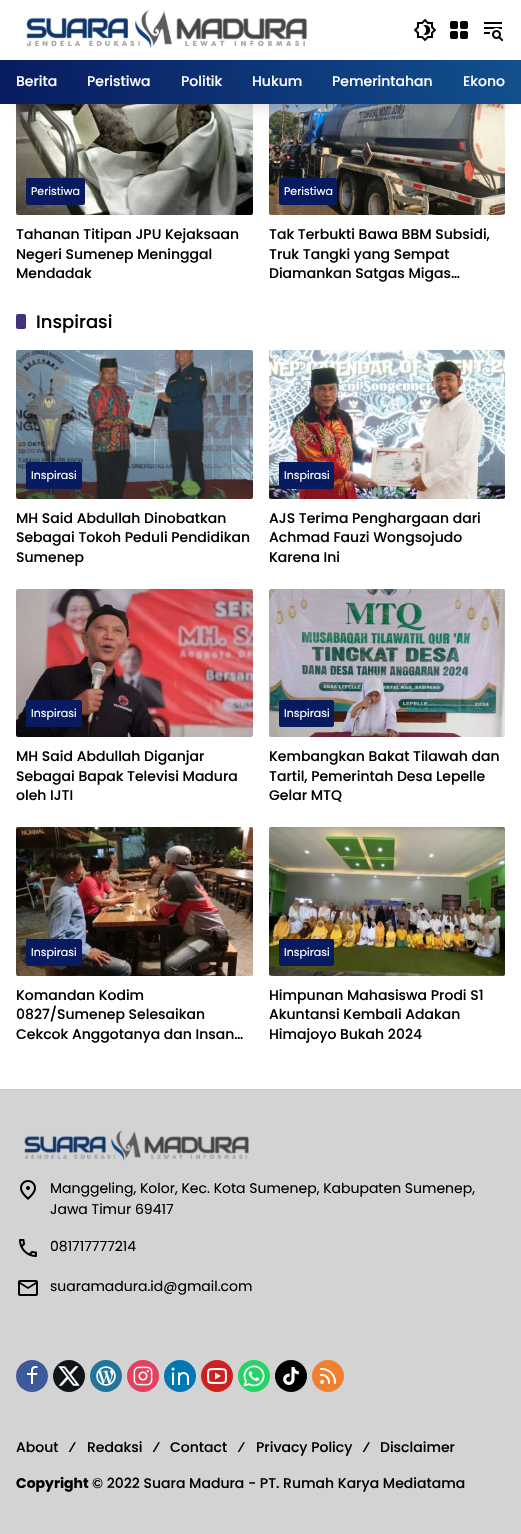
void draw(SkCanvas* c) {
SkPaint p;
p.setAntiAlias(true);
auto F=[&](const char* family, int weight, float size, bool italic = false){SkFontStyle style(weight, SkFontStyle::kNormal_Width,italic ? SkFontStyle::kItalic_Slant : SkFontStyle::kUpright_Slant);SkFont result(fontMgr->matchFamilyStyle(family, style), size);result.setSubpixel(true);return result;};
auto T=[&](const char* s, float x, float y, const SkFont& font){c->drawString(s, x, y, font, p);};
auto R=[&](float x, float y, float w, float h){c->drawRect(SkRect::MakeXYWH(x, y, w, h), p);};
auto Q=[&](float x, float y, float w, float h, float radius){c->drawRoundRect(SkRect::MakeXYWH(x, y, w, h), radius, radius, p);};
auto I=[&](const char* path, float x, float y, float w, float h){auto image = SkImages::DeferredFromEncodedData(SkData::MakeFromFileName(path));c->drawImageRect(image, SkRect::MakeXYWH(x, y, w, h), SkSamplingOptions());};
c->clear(0xffffffff);
I("1.png",26,10,282,38);
I("2.png",413,18,24,24);
I("3.png",450,21,18,18);
I("4.png",484,22,20,20);
I("5.png",16,104,237,111);
I("6.png",269,104,236,111);
p.setColor(0x33000000);
p.setMaskFilter(SkMaskFilter::MakeBlur(kNormal_SkBlurStyle, 7.5));
c->drawRect(SkRect::MakeXYWH(15,90,491,14),p);
p.setMaskFilter(nullptr);
{
const SkColor colors[] = {0xff081b60,0xff12508e};
const float stops[] = {0,1};
const SkPoint ends[] = {{4.1,127}, {517,37}};
p.setShader(SkGradientShader::MakeLinear(ends, colors, stops, 2, SkTileMode::kClamp));
p.setAlpha(255);
}
R(0,60,521,44);
auto f1 = F("Poppins",500,14);
p.setShader(nullptr);
p.setColor(0xffffffff);
T("Berita",16,86,f1);
T("Peristiwa",87,86,f1);
T("Politik",181,86,f1);
T("Hukum",252,86,f1);
T("Pemerintahan",332,86,f1);
T("Ekono",463,86,f1);
p.setColor(0xff081b60);
Q(26,178,59,27,2);
auto f2 = F("Poppins",400,11);
p.setColor(0xffffffff);
T("Peristiwa",31,195,f2);
p.setColor(0xff000000);
T("Tahanan Titipan JPU Kejaksaan",16,239,f1);
T("Negeri Sumenep Meninggal",16,259,f1);
T("Mendadak",16,278,f1);
p.setColor(0xff081b60);
Q(279,178,58,27,2);
p.setColor(0xffffffff);
T("Peristiwa",284,195,f2);
p.setColor(0xff000000);
T("Tak Terbukti Bawa BBM Subsidi,",269,239,f1);
T("Truk Tangki yang Sempat",269,259,f1);
T("Diamankan Satgas Migas…",269,278,f1);
p.setColor(0xff43327b);
Q(16,314,10,15,2);
auto f3 = F("Poppins",500,18);
p.setColor(0xff000000);
T("Inspirasi",36,328,f3);
I("7.png",16,350,237,149);
p.setColor(0xff081b60);
Q(26,462,56,27,2);
p.setColor(0xffffffff);
T("Inspirasi",31,479,f2);
p.setColor(0xff000000);
T("MH Said Abdullah Dinobatkan",16,523,f1);
T("Sebagai Tokoh Peduli Pendidikan",16,542,f1);
T("Sumenep",16,562,f1);
I("8.png",269,350,236,149);
p.setColor(0xff081b60);
Q(279,462,55,27,2);
p.setColor(0xffffffff);
T("Inspirasi",284,479,f2);
p.setColor(0xff000000);
T("AJS Terima Penghargaan dari",269,523,f1);
T("Achmad Fauzi Wongsojudo",269,542,f1);
T("Karena Ini",269,562,f1);
I("9.png",16,589,237,148);
p.setColor(0xff081b60);
Q(26,700,56,27,2);
p.setColor(0xffffffff);
T("Inspirasi",31,717,f2);
p.setColor(0xff000000);
T("MH Said Abdullah Diganjar",16,761,f1);
T("Sebagai Bapak Televisi Madura",16,781,f1);
T("oleh IJTI",16,800,f1);
I("10.png",269,589,236,148);
p.setColor(0xff081b60);
Q(279,700,55,27,2);
p.setColor(0xffffffff);
T("Inspirasi",284,717,f2);
p.setColor(0xff000000);
T("Kembangkan Bakat Tilawah dan",269,761,f1);
T("Tartil, Pemerintah Desa Lepelle",269,781,f1);
T("Gelar MTQ",269,800,f1);
I("11.png",16,827,237,149);
p.setColor(0xff081b60);
Q(26,939,56,27,2);
p.setColor(0xffffffff);
T("Inspirasi",31,956,f2);
p.setColor(0xff000000);
T("Komandan Kodim",16,1000,f1);
T("0827/Sumenep Selesaikan",16,1019,f1);
T("Cekcok Anggotanya dan Insan…",16,1039,f1);
I("12.png",269,827,236,149);
p.setColor(0xff081b60);
Q(279,939,55,27,2);
p.setColor(0xffffffff);
T("Inspirasi",284,956,f2);
p.setColor(0xff000000);
T("Himpunan Mahasiswa Prodi S1",269,1000,f1);
T("Akuntansi Kembali Adakan",269,1019,f1);
T("Himajoyo Bukah 2024",269,1039,f1);
p.setColor(0xffd3d3d3);
R(0,1090,521,444);
p.setColor(0xffcccccc);
R(0,1089,521,1);
I("13.png",24,1130,225,31);
I("14.png",20,1180,16,20);
auto f4 = F("Poppins",400,14);
p.setColor(0xff000000);
T("Manggeling, Kolor, Kec. Kota Sumenep, Kabupaten Sumenep,",50,1193,f4);
T("Jawa Timur 69417",50,1214,f4);
I("15.png",19,1239,18,18);
T("081717777214",50,1251,f4);
I("16.png",18,1280,20,16);
T("suaramadura.id@gmail.com",50,1291,f4);
p.setColor(0xff3c5a99);
c->drawCircle(32,1376,16,p);
I("17.png",27,1366,11,18);
p.setColor(0xff0f1419);
c->drawCircle(69,1376,16,p);
I("18.png",58,1366,22,20);
p.setColor(0xff21759b);
c->drawCircle(106,1376,16,p);
I("19.png",96,1366,20,20);
p.setColor(0xffe4405f);
c->drawCircle(143,1376,16,p);
I("20.png",133,1366,20,20);
p.setColor(0xff0077b5);
c->drawCircle(180,1376,16,p);
I("21.png",171,1367,18,18);
p.setColor(0xffcd201f);
c->drawCircle(217,1376,16,p);
I("22.png",207,1368,20,16);
p.setColor(0xff25d366);
c->drawCircle(254,1376,16,p);
I("23.png",243,1365,22,22);
p.setColor(0xff010101);
c->drawCircle(291,1376,16,p);
I("24.png",283,1367,16,18);
p.setColor(0xffee802f);
c->drawCircle(328,1376,16,p);
I("25.png",320,1368,16,16);
p.setColor(0xff000000);
T("About",16,1452,f1);
T("⁄",68,1452,f1);
T("Redaksi",87,1452,f1);
T("⁄",152,1452,f1);
T("Contact",170,1452,f1);
T("⁄",237,1452,f1);
T("Privacy Policy",256,1452,f1);
T("⁄",362,1452,f1);
T("Disclaimer",380,1452,f1);
auto f5 = F("Poppins",700,14);
T("Copyright",16,1488,f5);
T("© 2022 Suara Madura - PT. Rumah Karya Mediatama",92,1488,f1);
}
